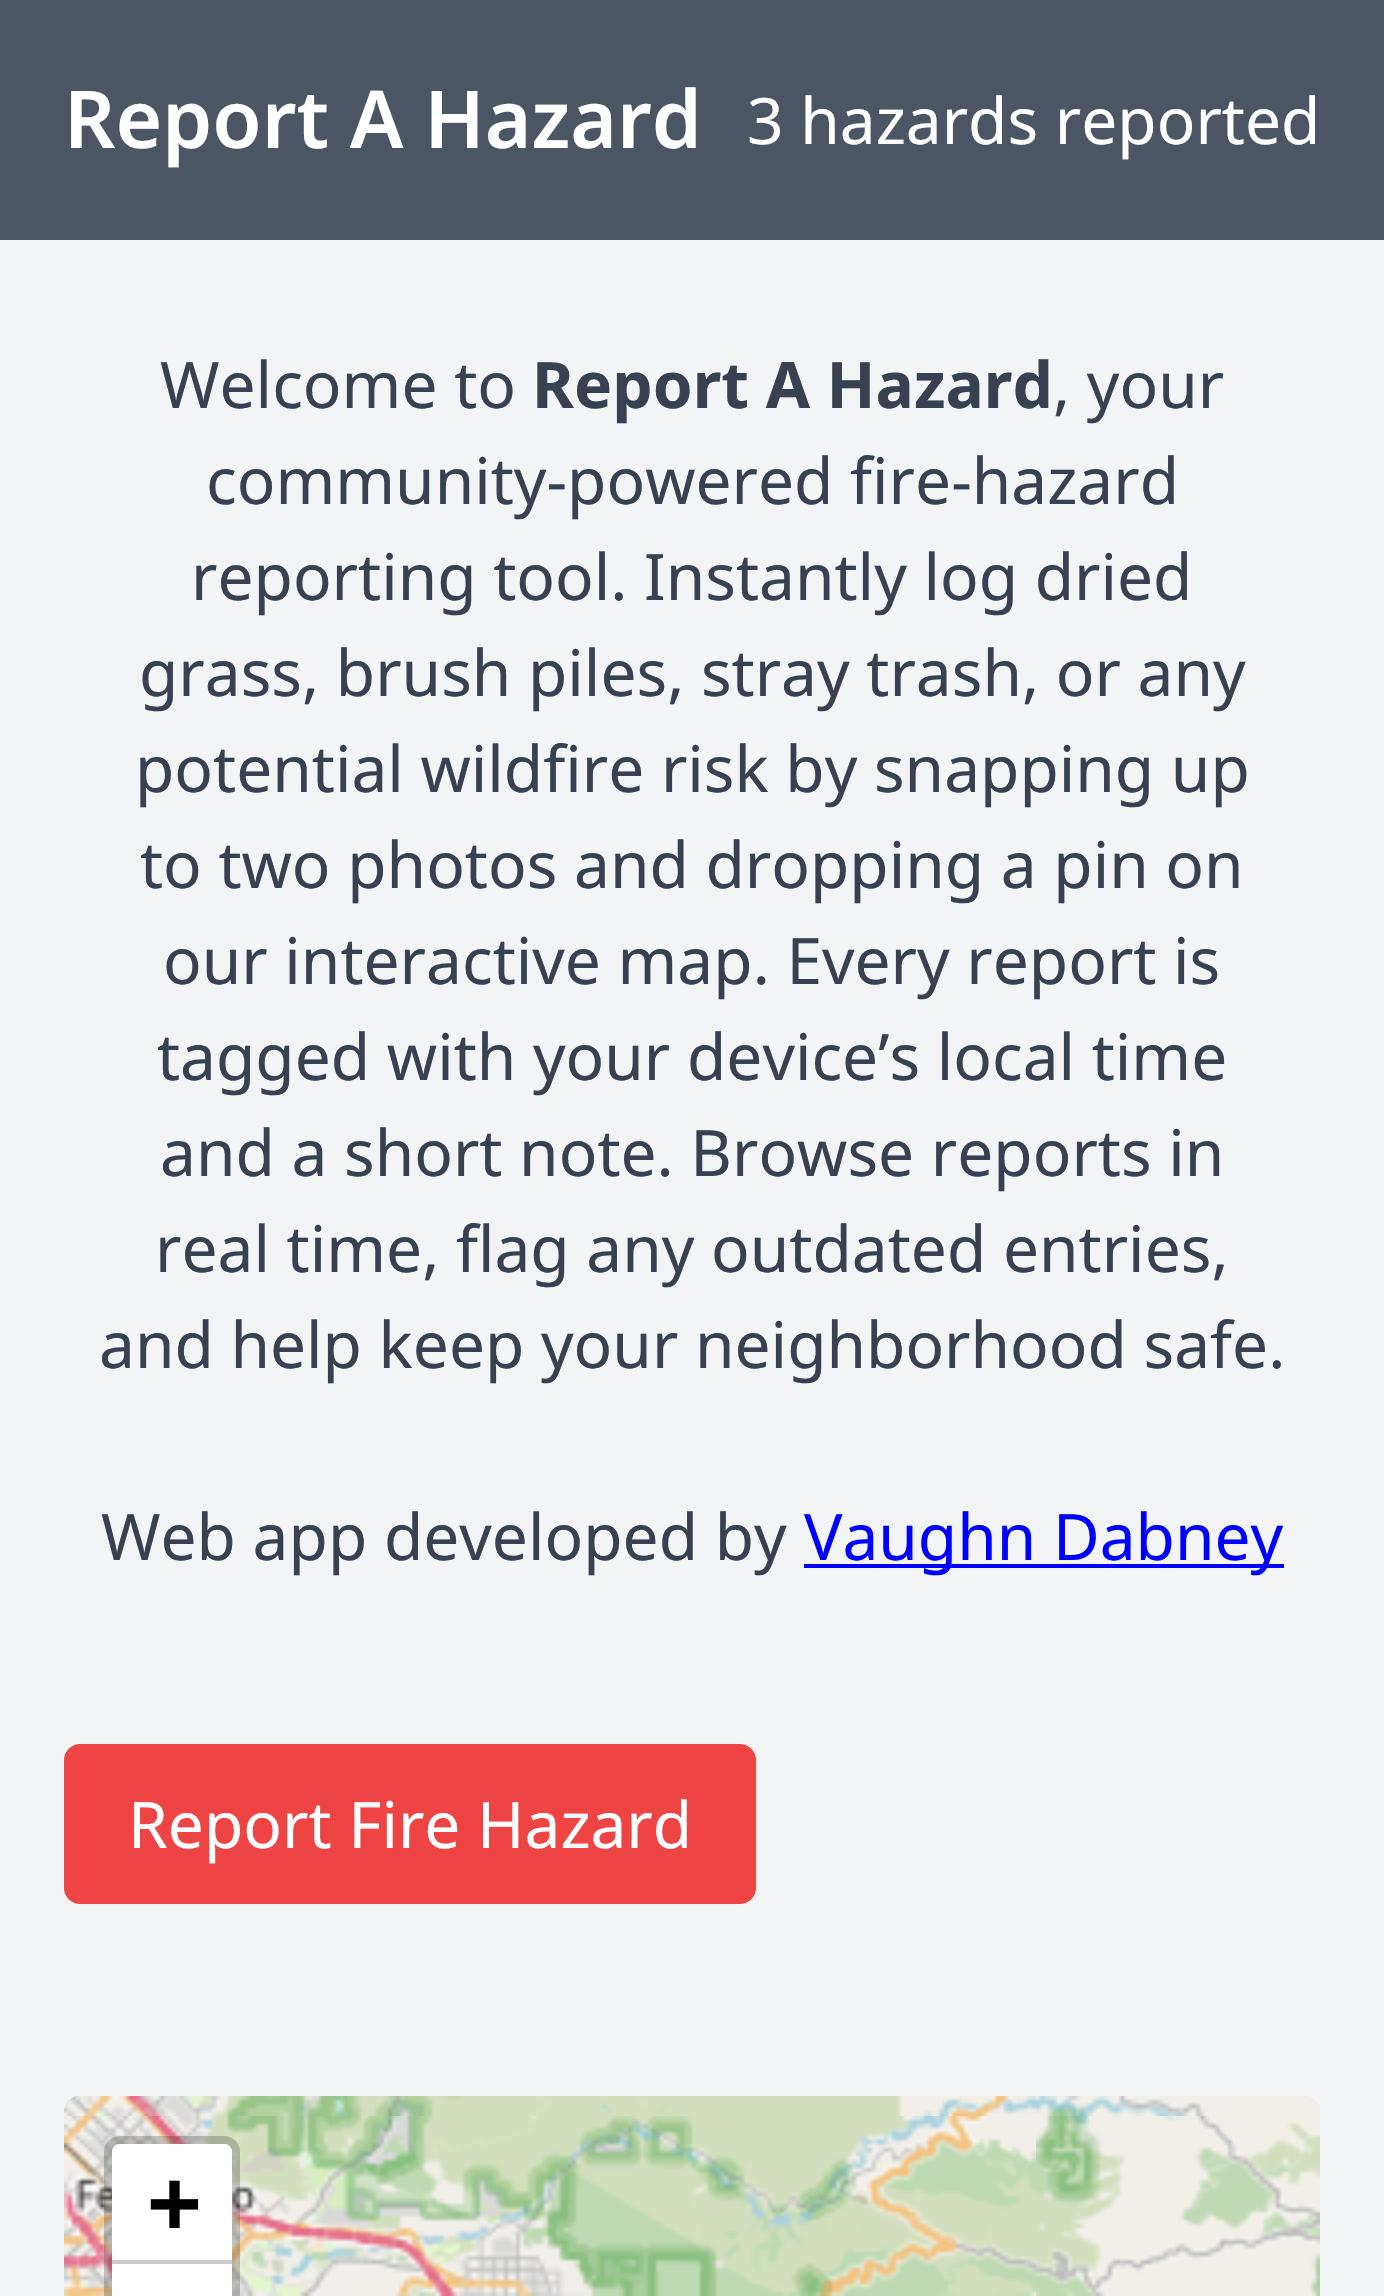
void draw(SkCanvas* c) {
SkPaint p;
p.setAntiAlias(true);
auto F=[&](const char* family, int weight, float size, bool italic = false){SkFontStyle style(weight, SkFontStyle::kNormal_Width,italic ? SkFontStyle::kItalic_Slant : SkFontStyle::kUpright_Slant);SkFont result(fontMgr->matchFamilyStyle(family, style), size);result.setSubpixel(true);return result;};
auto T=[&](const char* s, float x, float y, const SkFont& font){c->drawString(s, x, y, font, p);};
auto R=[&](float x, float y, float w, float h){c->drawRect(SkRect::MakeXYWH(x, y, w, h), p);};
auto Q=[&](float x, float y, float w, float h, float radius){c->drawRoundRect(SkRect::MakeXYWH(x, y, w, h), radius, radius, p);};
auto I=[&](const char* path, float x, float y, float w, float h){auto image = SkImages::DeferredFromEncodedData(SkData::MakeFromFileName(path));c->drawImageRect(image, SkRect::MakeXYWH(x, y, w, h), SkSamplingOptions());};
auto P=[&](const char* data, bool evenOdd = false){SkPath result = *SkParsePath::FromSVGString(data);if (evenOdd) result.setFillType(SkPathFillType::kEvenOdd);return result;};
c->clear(0xfff3f4f6);
p.setColor(0xff4b5563);
R(0,0,1384,240);
auto f1 = F("Noto Sans",600,80);
p.setColor(0xffffffff);
T("Report A Hazard",64,148,f1);
auto f2 = F("Noto Sans",400,64);
T("3 hazards reported",747,144,f2);
p.setColor(0xff374151);
T("Welcome to",160,408,f2);
auto f3 = F("Noto Sans",700,64);
T("Report A Hazard",532,408,f3);
T(", your",1053,408,f2);
T("community-powered fire-hazard",206,504,f2);
T("reporting tool. Instantly log dried",191,600,f2);
T("grass, brush piles, stray trash, or any",139,696,f2);
T("potential wildfire risk by snapping up",135,792,f2);
T("to two photos and dropping a pin on",140,888,f2);
T("our interactive map. Every report is",163,984,f2);
T("tagged with your device’s local time",157,1080,f2);
T("and a short note. Browse reports in",160,1176,f2);
T("real time, flag any outdated entries,",155,1272,f2);
T("and help keep your neighborhood safe.",99,1368,f2);
T("Web app developed by",101,1560,f2);
p.setColor(0xff0000ff);
R(804,1564,480,4);
T("Vaughn Dabney",804,1560,f2);
p.setColor(0xffef4444);
Q(64,1744,692,160,16);
p.setColor(0xffffffff);
T("Report Fire Hazard",128,1848,f2);
p.setColor(0xffdddddd);
Q(64,2096,1256,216,16);
I("1.png",64,2096,972,20);
I("2.png",1036,2096,284,20);
I("3.png",64,2116,972,180);
I("4.png",1036,2116,284,180);
p.setStroke(true);
p.setStrokeWidth(8);
p.setColor(0x33000000);
c->drawRoundRect(SkRect::MakeXYWH(108,2140,128,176),12,12,p);
p.setStroke(false);
p.setColor(0xffffffff);
c->drawPath(P("M120 2144h104c4.5 0 8 3.5 8 8v108h-120v-108c0-4.5 3.5-8 8-8z"),p);
p.setColor(0xffcccccc);
R(112,2260,120,4);
auto f4 = F("DejaVu Sans Mono",700,88);
p.setColor(0xff000000);
T("+",148,2232,f4);
p.setColor(0xffffffff);
R(112,2264,120,32);
}
